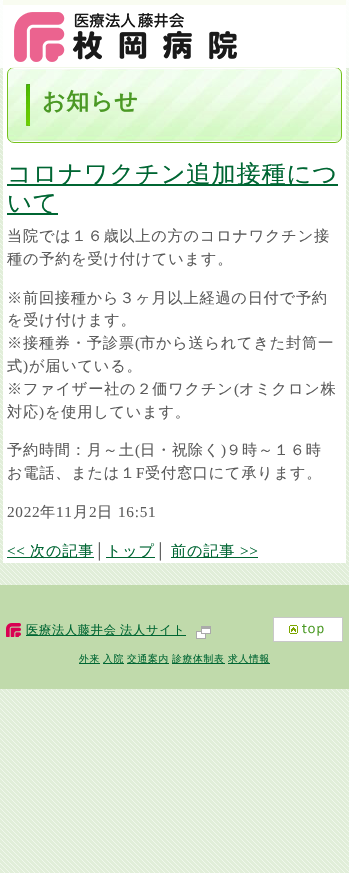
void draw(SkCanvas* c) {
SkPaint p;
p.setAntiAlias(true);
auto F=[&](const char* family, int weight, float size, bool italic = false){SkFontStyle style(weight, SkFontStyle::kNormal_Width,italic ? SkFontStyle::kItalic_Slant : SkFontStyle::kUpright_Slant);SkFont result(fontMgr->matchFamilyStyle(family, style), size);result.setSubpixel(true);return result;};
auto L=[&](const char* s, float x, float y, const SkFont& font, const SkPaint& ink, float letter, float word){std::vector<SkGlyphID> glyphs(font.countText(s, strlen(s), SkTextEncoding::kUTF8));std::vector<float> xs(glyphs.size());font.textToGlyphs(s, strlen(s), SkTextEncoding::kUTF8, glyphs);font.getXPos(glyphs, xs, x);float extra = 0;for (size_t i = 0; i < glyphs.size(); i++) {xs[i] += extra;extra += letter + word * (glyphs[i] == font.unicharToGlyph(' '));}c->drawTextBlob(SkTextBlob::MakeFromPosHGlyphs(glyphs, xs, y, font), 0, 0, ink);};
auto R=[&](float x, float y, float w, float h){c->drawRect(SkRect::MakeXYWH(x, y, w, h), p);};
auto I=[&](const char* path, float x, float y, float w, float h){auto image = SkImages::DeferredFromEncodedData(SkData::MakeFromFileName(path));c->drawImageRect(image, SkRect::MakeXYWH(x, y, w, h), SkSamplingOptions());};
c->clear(0xffffffff);
I("1.png",0,0,349,873);
p.setColor(0xffffffff);
R(3,5,343,558);
p.setColor(0xffbce06c);
R(3,0,343,5);
I("3.png",7,69,335,72);
p.setStroke(true);
p.setStrokeWidth(1);
p.setColor(0xff76c11d);
c->drawRoundRect(SkRect::MakeXYWH(7.5,67.5,334,75),6.5,6.5,p);
p.setStroke(false);
p.setColor(0xe6ffffff);
R(0,0,349,68);
I("2.png",14,12,223,50);
auto f1 = F("WenQuanYi Zen Hei",700,23);
p.setColor(0xff4b9925);
L("お知らせ",42,109,f1,p,.75,0);
p.setColor(0xff006633);
R(7,184,331,2);
auto f2 = F("WenQuanYi Zen Hei",500,24.3);
L("コロナワクチン追加接種につ",7,182,f2,p,.75,0);
R(7,213,51,2);
L("いて",7,211,f2,p,.75,0);
auto f3 = F("WenQuanYi Zen Hei",500,15.2);
p.setColor(0xff5b5b5b);
L("当院では１６歳以上の方のコロナワクチン接",7,241,f3,p,.75,0);
L("種の予約を受け付けています。",7,264,f3,p,.75,0);
L("※前回接種から３ヶ月以上経過の日付で予約",7,303,f3,p,.75,0);
L("を受け付けます。",7,325,f3,p,.75,0);
L("※接種券・予診票",7,348,f3,p,.75,0);
auto f4 = F("Liberation Serif",400,15.2);
L("(",135,348,f4,p,.75,0);
L("市から送られてきた封筒一",140,348,f3,p,.75,0);
L("式",7,371,f3,p,.75,0);
L(")",23,371,f4,p,.75,0);
L("が届いている。",29,371,f3,p,.75,0);
L("※ファイザー社の２価ワクチン",7,394,f3,p,.75,0);
L("(",234,394,f4,p,.75,0);
L("オミクロン株",239,394,f3,p,.75,0);
L("対応",7,417,f3,p,.75,0);
L(")",39,417,f4,p,.75,0);
L("を使用しています。",45,417,f3,p,.75,0);
L("予約時間：月～土",7,455,f3,p,.75,0);
L("(",135,455,f4,p,.75,0);
L("日・祝除く",140,455,f3,p,.75,0);
L(")",221,455,f4,p,.75,0);
L("９時～１６時",226,455,f3,p,.75,0);
L("お電話、または１",7,478,f3,p,.75,0);
L("F",136,478,f4,p,.75,0);
L("受付窓口にて承ります。",145,478,f3,p,.75,0);
L("2022",7,517,f4,p,.75,0);
L("年",40,517,f3,p,.75,0);
L("11",56,517,f4,p,.75,0);
L("月",73,517,f3,p,.75,0);
L("2",89,517,f4,p,.75,0);
L("日",97,517,f3,p,.75,0);
L("16:51",118,517,f4,p,.75,0);
p.setColor(0xff006633);
L("<<",7,556,f4,p,.75,0);
R(7,557,87,1);
L("次の記事",30,556,f3,p,.75,0);
p.setColor(0xff5b5b5b);
L("│",94,556,f4,p,.75,0);
p.setColor(0xff006633);
R(106,557,49,1);
L("トップ",106,556,f3,p,.75,0);
p.setColor(0xff5b5b5b);
L("│",155,556,f4,p,.75,0);
p.setColor(0xff006633);
R(171,557,87,1);
L("前の記事",171,556,f3,p,.75,0);
L(">>",240,556,f4,p,.75,0);
p.setColor(0xffc0daab);
R(0,585,349,104);
I("4.png",6,623,15,14);
p.setColor(0xff006633);
R(26,635,160,1);
auto f5 = F("WenQuanYi Zen Hei",500,12.2);
L("医療法人藤井会 法人サイト",26,634,f5,p,.75,-1);
p.setColor(0xffffffff);
c->drawRect(SkRect::MakeXYWH(196.5,631.5,9,7),p);
p.setStroke(true);
p.setColor(0xffaaaaaa);
c->drawRect(SkRect::MakeXYWH(196.5,631.5,9,7),p);
p.setStroke(false);
p.setColor(0xffffffff);
R(202,629,8,4);
p.setColor(0xffaaaaaa);
R(201,626,10,3);
R(210,626,1,8);
R(201,633,10,1);
R(201,626,1,8);
I("5.png",273,617,70,25);
p.setColor(0xff006633);
R(79,663,21,1);
auto f6 = F("WenQuanYi Zen Hei",500,9.75);
L("外来",79,662,f6,p,.75,0);
R(103,663,21,1);
L("入院",103,662,f6,p,.75,0);
R(127,663,42,1);
L("交通案内",127,662,f6,p,.75,0);
R(172,663,53,1);
L("診療体制表",172,662,f6,p,.75,0);
R(228,663,42,1);
L("求人情報",228,662,f6,p,.75,0);
}
